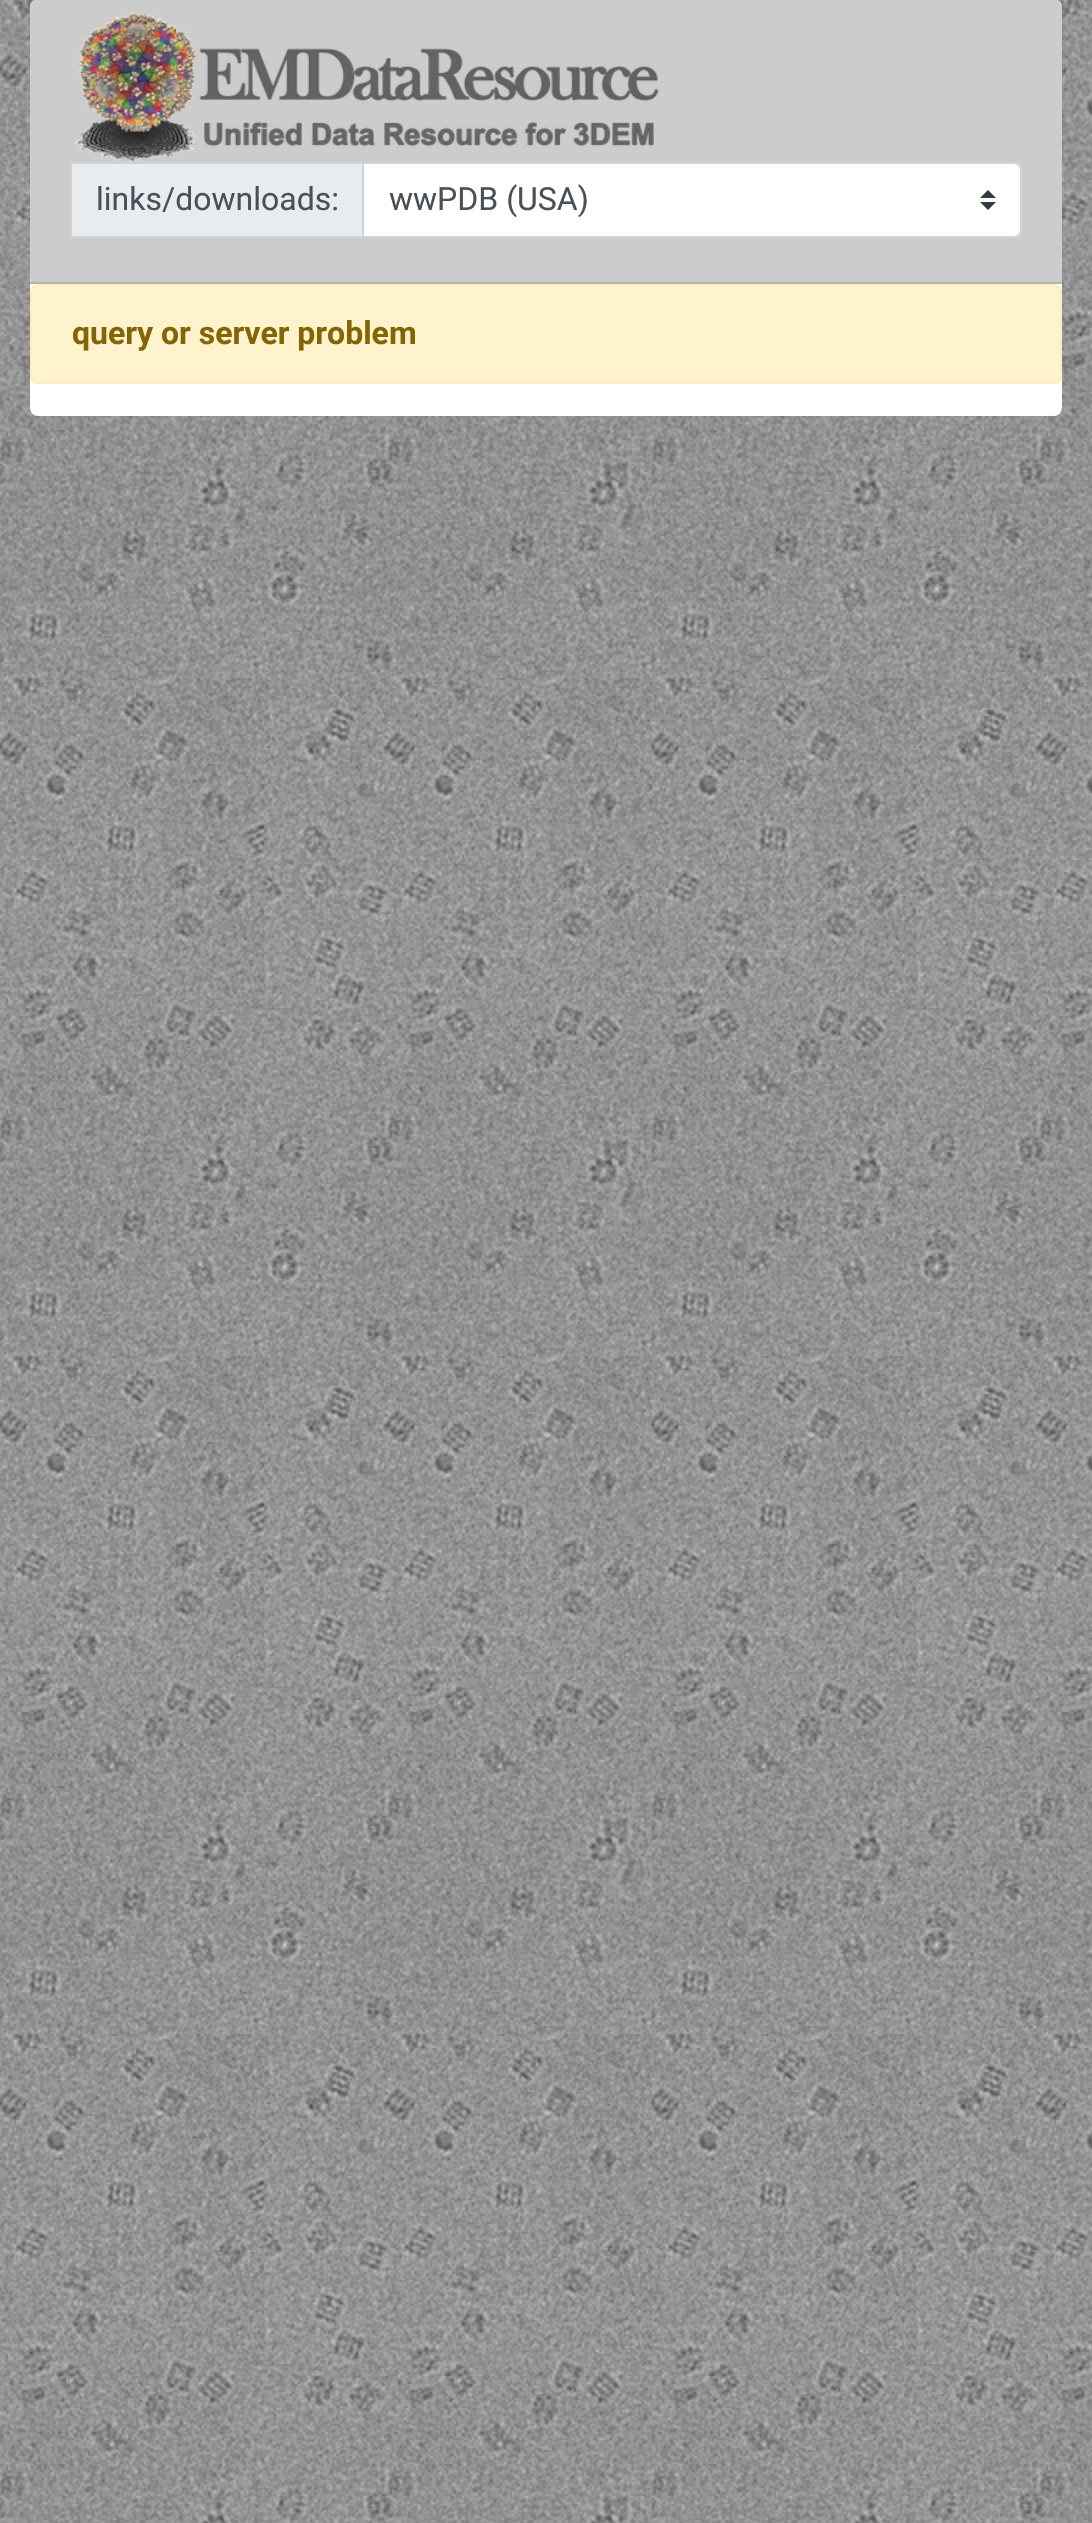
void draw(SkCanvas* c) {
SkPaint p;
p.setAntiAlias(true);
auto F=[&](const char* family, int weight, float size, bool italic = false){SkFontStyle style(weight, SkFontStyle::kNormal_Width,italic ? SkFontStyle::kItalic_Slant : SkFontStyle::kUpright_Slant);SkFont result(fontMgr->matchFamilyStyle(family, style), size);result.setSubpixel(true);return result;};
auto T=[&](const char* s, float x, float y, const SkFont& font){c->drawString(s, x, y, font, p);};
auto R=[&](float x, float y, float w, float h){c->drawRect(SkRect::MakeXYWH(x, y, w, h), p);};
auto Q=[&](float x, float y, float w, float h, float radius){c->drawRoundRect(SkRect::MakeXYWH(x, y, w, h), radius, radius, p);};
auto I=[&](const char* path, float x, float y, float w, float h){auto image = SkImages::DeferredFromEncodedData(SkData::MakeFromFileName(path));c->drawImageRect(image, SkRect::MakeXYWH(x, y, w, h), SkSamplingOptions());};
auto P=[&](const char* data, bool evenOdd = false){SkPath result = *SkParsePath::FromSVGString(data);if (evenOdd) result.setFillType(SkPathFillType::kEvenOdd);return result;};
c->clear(0xffffffff);
I("1.png",0,0,1092,2523);
p.setColor(0xffffffff);
Q(30,0,1032,416,8);
p.setColor(0xffcccccc);
c->drawPath(P("M36 0h1020c3.5 0 6 2.5 6 6v278h-1032v-278c0-3.5 2.5-6 6-6z"),p);
p.setColor(0xffb3b3b3);
R(30,282,1032,2);
I("2.png",74,12,585,150);
p.setColor(0xffe9ecef);
c->drawRect(SkRect::MakeXYWH(71,163,292,74),p);
p.setStroke(true);
p.setStrokeWidth(2);
p.setColor(0xffced4da);
c->drawRect(SkRect::MakeXYWH(71,163,292,74),p);
auto f1 = F("Roboto",400,32);
p.setStroke(false);
p.setColor(0xff495057);
T("links/downloads:",96,210,f1);
p.setColor(0xffffffff);
c->drawPath(P("M362 162h652c4.5 0 8 3.5 8 8v60c0 4.5-3.5 8-8 8h-652z"),p);
p.setColor(0xff343a40);
c->drawPath(P("M988 190l-8 8h16zm0 20l-8-8h16z"),p);
p.setStroke(true);
p.setColor(0xffced4da);
c->drawPath(P("M363 163h651c4 0 7 3 7 7v60c0 4-3 7-7 7h-651z"),p);
p.setStroke(false);
p.setColor(0xff495057);
T("wwPDB (USA)",389,210,f1);
p.setColor(0xfffff3cd);
c->drawRoundRect(SkRect::MakeXYWH(31,285,1030,98),7,7,p);
p.setStroke(true);
p.setColor(0xffffeeba);
c->drawRoundRect(SkRect::MakeXYWH(31,285,1030,98),7,7,p);
auto f2 = F("Roboto",700,32);
p.setStroke(false);
p.setColor(0xff856404);
T("query or server problem",72,344,f2);
}
